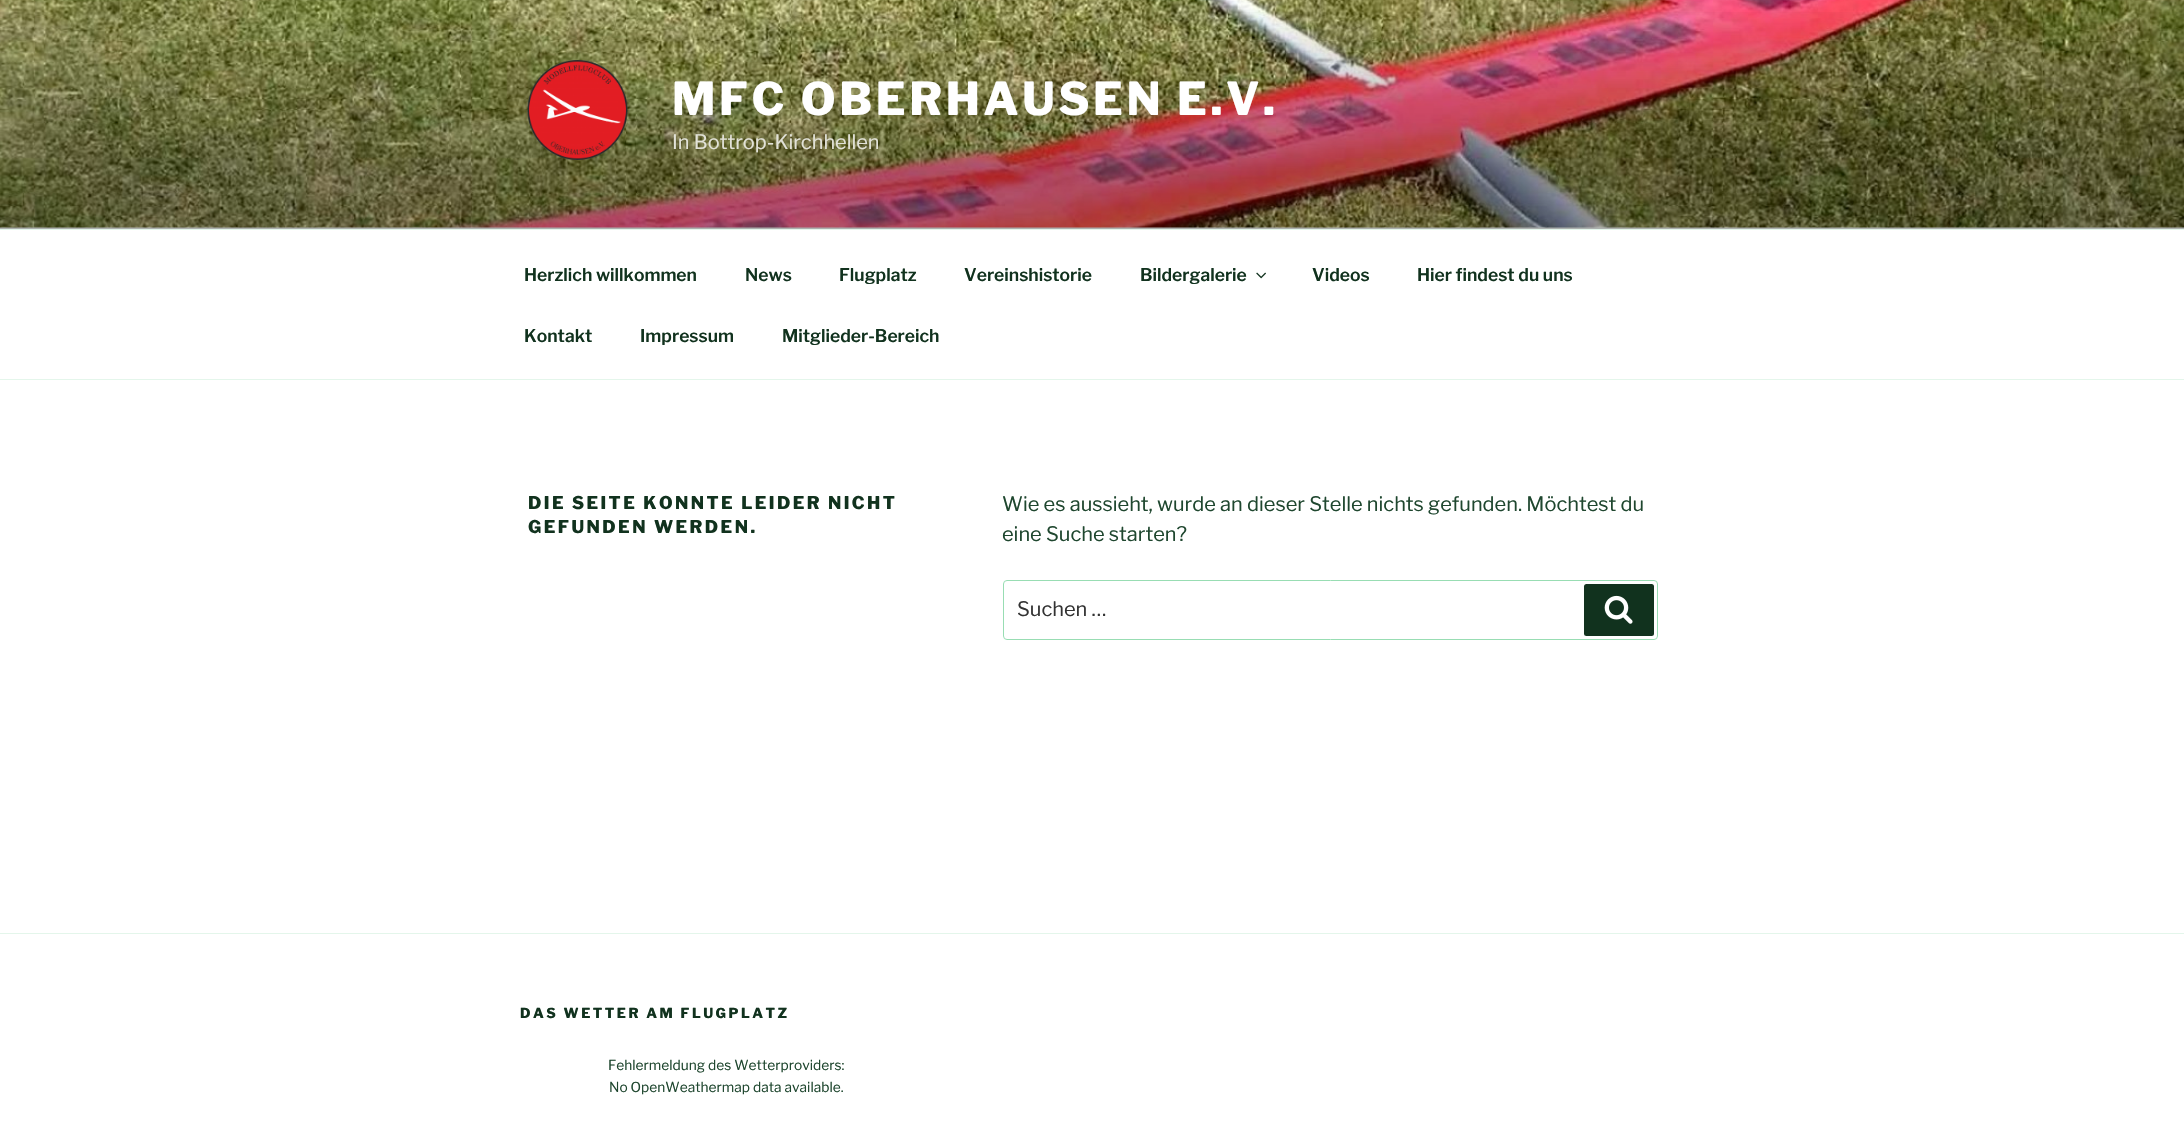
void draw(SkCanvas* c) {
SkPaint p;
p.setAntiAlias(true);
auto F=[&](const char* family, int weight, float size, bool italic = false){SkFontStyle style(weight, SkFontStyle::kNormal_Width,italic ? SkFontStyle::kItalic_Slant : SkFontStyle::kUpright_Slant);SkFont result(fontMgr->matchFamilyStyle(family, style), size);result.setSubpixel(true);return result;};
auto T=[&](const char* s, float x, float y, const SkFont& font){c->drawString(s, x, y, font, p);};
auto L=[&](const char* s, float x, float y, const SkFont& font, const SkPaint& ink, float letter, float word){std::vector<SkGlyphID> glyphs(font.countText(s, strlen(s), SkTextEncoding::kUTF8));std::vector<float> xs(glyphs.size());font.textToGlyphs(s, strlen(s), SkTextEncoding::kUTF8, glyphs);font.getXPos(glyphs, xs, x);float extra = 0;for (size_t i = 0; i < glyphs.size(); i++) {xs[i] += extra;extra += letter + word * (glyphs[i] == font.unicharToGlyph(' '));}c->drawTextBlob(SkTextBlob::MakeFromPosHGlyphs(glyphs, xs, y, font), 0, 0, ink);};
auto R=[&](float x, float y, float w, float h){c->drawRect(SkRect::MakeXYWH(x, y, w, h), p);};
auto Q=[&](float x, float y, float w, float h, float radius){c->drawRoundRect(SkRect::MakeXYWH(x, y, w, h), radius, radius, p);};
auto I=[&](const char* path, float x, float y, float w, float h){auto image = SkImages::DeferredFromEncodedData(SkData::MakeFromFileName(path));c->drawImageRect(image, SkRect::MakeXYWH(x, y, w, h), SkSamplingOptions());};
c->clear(0xffffffff);
p.setColor(0xfff7fcf9);
R(0,227,2184,2);
I("1.png",0,0,2184,228);
{
const SkColor colors[] = {0x00000000,0x4d000000,0x4d000000};
const float stops[] = {0,.75,1};
const SkPoint ends[] = {{1093,0}, {1093,229}};
p.setShader(SkGradientShader::MakeLinear(ends, colors, stops, 3, SkTileMode::kClamp));
p.setAlpha(255);
}
R(0,12,2184,217);
I("2.png",527,60,101,100);
auto f1 = F("Libre Franklin",100,45);
p.setShader(nullptr);
p.setColor(0xffffffff);
L("MFC OBERHAUSEN E.V.",672,115,f1,p,3.6,0);
auto f2 = F("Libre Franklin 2",100,20);
p.setColor(0xffe2e2d8);
T("In Bottrop-Kirchhellen",672,149,f2);
p.setColor(0xffe4f6eb);
R(0,229,2184,1);
R(0,379,2184,1);
auto f3 = F("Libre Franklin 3",100,17.5);
p.setColor(0xff11321e);
T("Herzlich willkommen",524,281,f3);
T("News",745,281,f3);
T("Flugplatz",839,281,f3);
T("Vereinshistorie",964,281,f3);
T("Bildergalerie",1140,281,f3);
I("3.png",1256,272,10,7);
T("Videos",1312,281,f3);
T("Hier findest du uns",1417,281,f3);
T("Kontakt",524,342,f3);
T("Impressum",640,342,f3);
T("Mitglieder-Bereich",782,342,f3);
auto f4 = F("Libre Franklin",100,17.5);
L("DIE SEITE KONNTE LEIDER NICHT",528,509,f4,p,2.45,0);
L("GEFUNDEN WERDEN.",528,533,f4,p,2.45,0);
p.setColor(0xff1f472f);
T("Wie es aussieht, wurde an dieser Stelle nichts gefunden. Möchtest du",1002,511,f2);
T("eine Suche starten?",1002,541,f2);
p.setStroke(true);
p.setStrokeWidth(1);
p.setColor(0xff98ddb3);
c->drawRoundRect(SkRect::MakeXYWH(1003.5,580.5,654,59),3.5,3.5,p);
p.setStroke(false);
p.setColor(0xff333333);
T("Suchen …",1017,616,f2);
p.setColor(0xff11321e);
Q(1584,584,70,52,2.5);
I("4.png",1604,595,29,29);
p.setColor(0xffe4f6eb);
R(0,933,2184,1);
auto f5 = F("Libre Franklin",100,13.75);
p.setColor(0xff11321e);
L("DAS WETTER AM FLUGPLATZ",520,1018,f5,p,2.5,0);
auto f6 = F("Libre Franklin 2",100,13.75);
p.setColor(0xff1f472f);
T("Fehlermeldung des Wetterproviders:",608,1070,f6);
T("No OpenWeathermap data available.",609,1092,f6);
}
